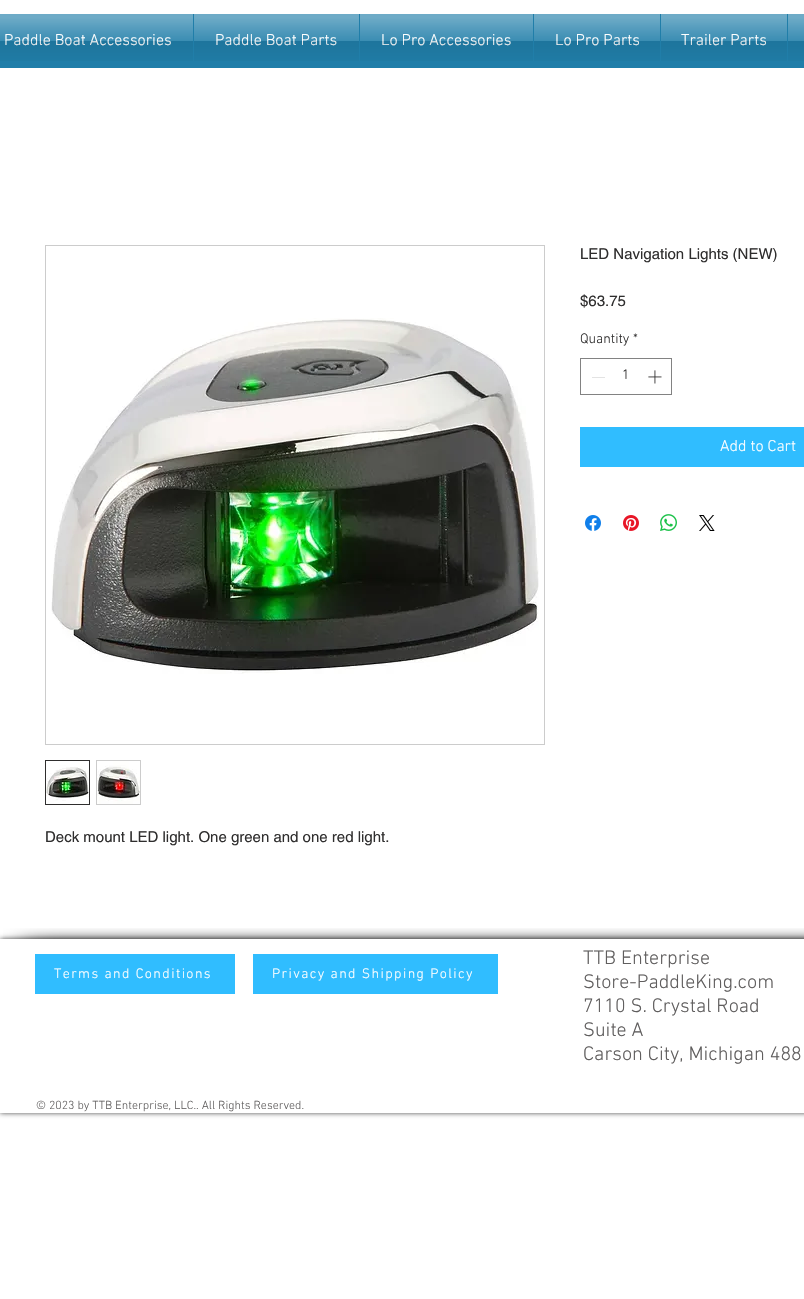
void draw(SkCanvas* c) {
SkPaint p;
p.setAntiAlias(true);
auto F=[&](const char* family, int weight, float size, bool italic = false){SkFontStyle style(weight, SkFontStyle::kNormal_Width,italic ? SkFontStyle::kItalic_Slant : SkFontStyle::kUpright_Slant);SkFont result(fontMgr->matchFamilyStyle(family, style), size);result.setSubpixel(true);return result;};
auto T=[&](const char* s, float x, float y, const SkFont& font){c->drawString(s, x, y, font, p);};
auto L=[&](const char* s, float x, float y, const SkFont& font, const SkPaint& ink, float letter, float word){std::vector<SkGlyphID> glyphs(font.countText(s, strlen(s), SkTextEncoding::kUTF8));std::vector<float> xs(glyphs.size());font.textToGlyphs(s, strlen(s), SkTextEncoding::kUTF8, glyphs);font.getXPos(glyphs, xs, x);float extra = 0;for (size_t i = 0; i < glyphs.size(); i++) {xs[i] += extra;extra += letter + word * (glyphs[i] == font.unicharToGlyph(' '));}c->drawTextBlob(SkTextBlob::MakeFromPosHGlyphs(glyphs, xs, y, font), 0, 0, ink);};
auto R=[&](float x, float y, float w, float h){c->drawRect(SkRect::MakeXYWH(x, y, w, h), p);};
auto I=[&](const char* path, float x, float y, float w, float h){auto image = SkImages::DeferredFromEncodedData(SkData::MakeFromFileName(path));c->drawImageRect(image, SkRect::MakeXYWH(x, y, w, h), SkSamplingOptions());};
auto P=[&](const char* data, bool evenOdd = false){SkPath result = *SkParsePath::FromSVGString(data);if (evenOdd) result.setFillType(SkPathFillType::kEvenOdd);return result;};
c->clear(0xffffffff);
p.setColor(0xff207ea9);
R(0,14,804,54);
auto f1 = F("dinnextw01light",300,16);
p.setColor(0xffffffff);
T("Paddle Boat Accessories",4,45,f1);
I("1.png",0,14,193,47);
T("Paddle Boat Parts",215,45,f1);
I("2.png",194,14,165,47);
T("Lo Pro Accessories",381,45,f1);
I("3.png",360,14,173,47);
T("Lo Pro Parts",555,45,f1);
I("4.png",534,14,126,47);
T("Trailer Parts",681,45,f1);
I("5.png",661,14,126,47);
I("6.png",788,14,16,47);
auto f2 = F("helvetica",400,15);
p.setColor(0xff2f2e2e);
T("LED Navigation Lights (NEW)",580,259,f2);
T("$63.75",580,306,f2);
auto f3 = F("dinnextw01light",300,14);
T("Quantity",580,343,f3);
T("*",633,343,f3);
p.setStroke(true);
p.setStrokeWidth(1);
p.setColor(0xff828282);
c->drawRect(SkRect::MakeXYWH(580.5,358.5,91,36),p);
p.setStroke(false);
p.setColor(0xffe3e3e3);
R(592,377,13,1);
p.setColor(0xff2f2e2e);
T("1",622,379,f3);
I("7.png",648,370,14,14);
p.setColor(0xff30bdff);
R(580,427,224,40);
p.setColor(0xffffffff);
T("Add to Cart",720,451,f1);
I("8.png",585,515,16,16);
I("9.png",623,515,16,16);
I("10.png",660,514,17,17);
I("11.png",699,515,16,16);
p.setStroke(true);
p.setColor(0xffcccccc);
c->drawRect(SkRect::MakeXYWH(45.5,245.5,499,499),p);
I("12.png",51,318,488,356);
p.setColor(0xff2f2e2e);
c->drawRect(SkRect::MakeXYWH(45.5,760.5,44,44),p);
I("13.png",46,761,43,43);
p.setStroke(false);
p.setColor(0xffcccccc);
R(96,760,45,45);
I("14.png",97,761,43,43);
p.setColor(0xff2f2e2e);
T("Deck mount LED light. One green and one red light.",45,842,f2);
c->save();
c->clipPath(P("M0 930h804v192h-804zm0 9h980v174h-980z",true),true);
p.setColor(0xb3000000);
p.setMaskFilter(SkMaskFilter::MakeBlur(kNormal_SkBlurStyle, 2.5));
c->drawRect(SkRect::MakeXYWH(0,939,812,174),p);
p.setMaskFilter(nullptr);
c->restore();
I("15.png",3,928,97,11);
I("16.png",100,928,704,11);
p.setColor(0xff30bdff);
R(35,954,200,40);
p.setColor(0xffffffff);
L("Terms and Conditions",54,978,f3,p,1.4,0);
p.setColor(0xff30bdff);
R(253,954,245,40);
p.setColor(0xffffffff);
L("Privacy and Shipping Policy",272,978,f3,p,1.4,0);
auto f4 = F("dinnextw01light",300,20);
p.setColor(0xff605e5e);
T("TTB Enterprise",583,964,f4);
T("Store-PaddleKing.com",583,988,f4);
T("7110 S. Crystal Road",583,1012,f4);
T("Suite A",583,1036,f4);
T("Carson City, Michigan 488",583,1060,f4);
auto f5 = F("dinnextw01light",300,12);
T("© 2023 by TTB Enterprise, LLC.. All Rights Reserved.",36,1109,f5);
}
